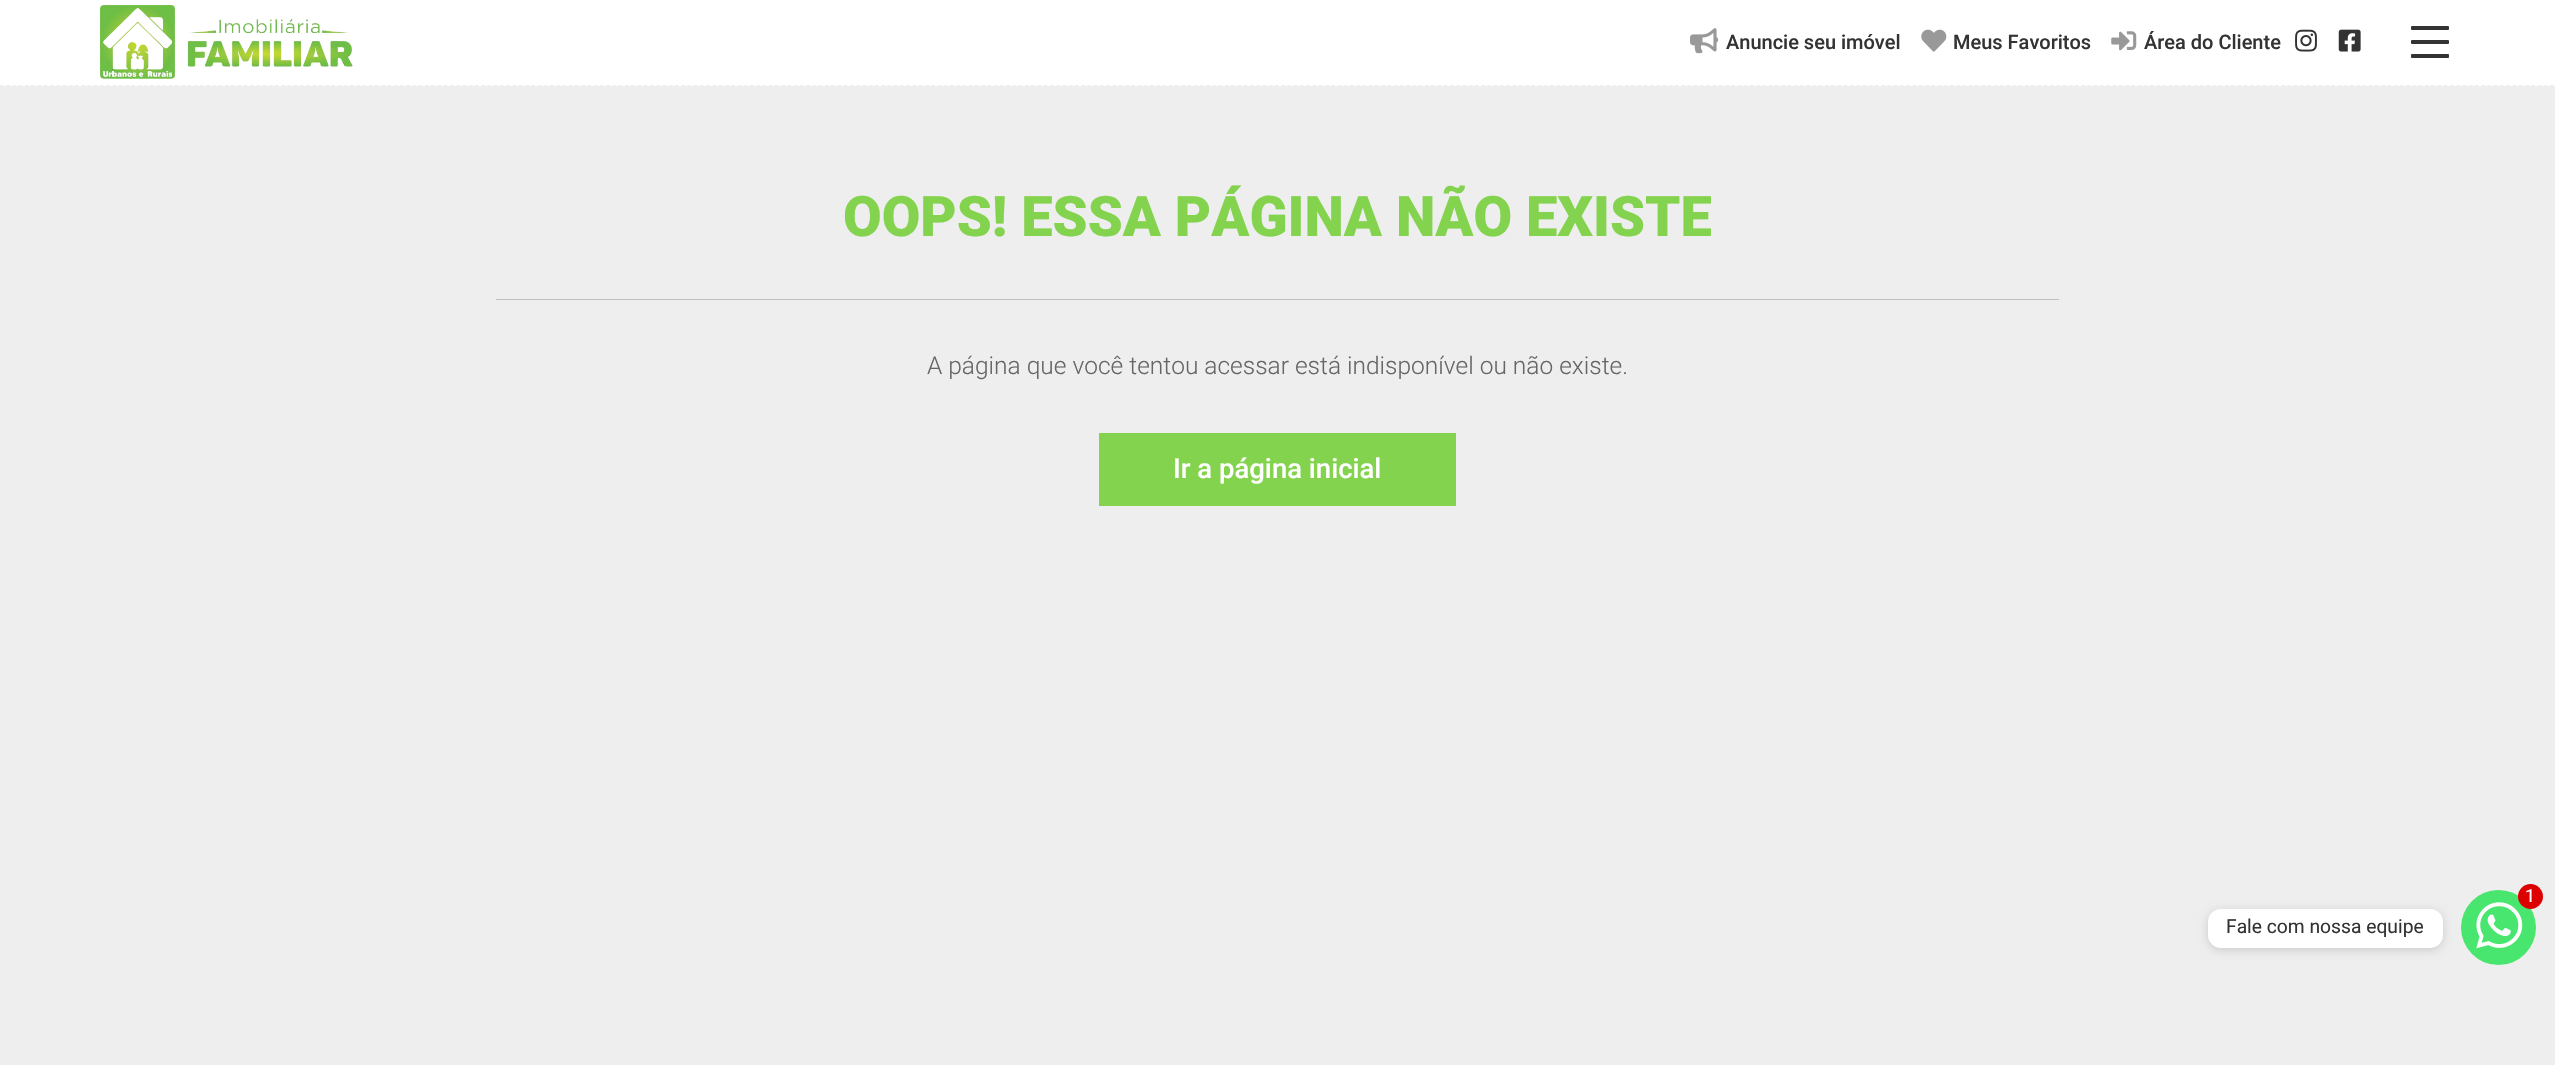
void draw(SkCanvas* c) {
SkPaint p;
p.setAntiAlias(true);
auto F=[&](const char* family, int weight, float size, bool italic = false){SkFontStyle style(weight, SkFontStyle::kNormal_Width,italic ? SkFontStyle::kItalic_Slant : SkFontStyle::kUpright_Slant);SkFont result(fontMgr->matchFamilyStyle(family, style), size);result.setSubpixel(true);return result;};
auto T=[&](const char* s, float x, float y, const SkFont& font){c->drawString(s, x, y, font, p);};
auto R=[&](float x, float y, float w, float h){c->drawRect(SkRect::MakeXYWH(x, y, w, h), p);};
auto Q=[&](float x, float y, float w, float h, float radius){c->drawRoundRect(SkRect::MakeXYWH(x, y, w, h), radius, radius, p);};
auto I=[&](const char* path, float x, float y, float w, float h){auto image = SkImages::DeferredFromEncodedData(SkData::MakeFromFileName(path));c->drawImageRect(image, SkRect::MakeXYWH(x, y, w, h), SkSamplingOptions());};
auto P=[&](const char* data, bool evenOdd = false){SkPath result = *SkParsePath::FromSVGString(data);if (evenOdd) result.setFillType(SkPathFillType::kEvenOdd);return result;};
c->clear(0xffeeeeee);
p.setColor(0xffffffff);
R(0,0,2555,86);
p.setStroke(true);
p.setStrokeWidth(1.2);
p.setColor(0xffeeeeee);
p.setPathEffect(SkDashPathEffect::Make({{3.75f,2.5f}}, 0));
c->drawPath(P("M0 85.5h2555"),p);
p.setPathEffect(nullptr);
I("1.png",100,5,253,74);
I("2.png",1690,28,29,26);
auto f1 = F("Roboto",500,20);
p.setStroke(false);
p.setColor(0xff333333);
T("Anuncie seu imóvel",1726,49,f1);
I("3.png",1921,29,26,23);
T("Meus Favoritos",1953,49,f1);
I("4.png",2111,31,26,20);
T("Área do Cliente",2144,49,f1);
I("5.png",2295,29,22,23);
I("6.png",2338,29,23,23);
Q(2411,26,38,4,1);
Q(2411,40,38,4,1);
Q(2411,54,38,4,1);
p.setColor(0xffc1c1c1);
R(496,299,1563,1);
auto f2 = F("Roboto",900,56);
p.setColor(0xff84d34e);
T("OOPS! ESSA PÁGINA NÃO EXISTE",843,236,f2);
auto f3 = F("Roboto",300,24.5);
p.setColor(0xff666666);
T("A página que você tentou acessar está indisponível ou não existe.",927,374,f3);
p.setColor(0xff84d34e);
R(1099,433,357,73);
auto f4 = F("Roboto",500,27.5);
p.setColor(0xffffffff);
T("Ir a página inicial",1173,478,f4);
p.setColor(0xff48e66f);
c->drawCircle(2498.5,927.5,37.5,p);
I("7.png",2476,902,47,47);
p.setColor(0xffdd0000);
c->drawCircle(2530.5,896.5,12.5,p);
auto f5 = F("Roboto",400,18);
p.setColor(0xffffffff);
T("1",2525,902,f5);
p.setColor(0x26000000);
p.setMaskFilter(SkMaskFilter::MakeBlur(kNormal_SkBlurStyle, 5));
c->drawRoundRect(SkRect::MakeXYWH(2208,911,235,39),13,13,p);
p.setMaskFilter(nullptr);
p.setColor(0xffffffff);
Q(2208,909,235,39,13);
auto f6 = F("Roboto",400,19.25);
p.setColor(0xff333333);
T("Fale com nossa equipe",2226,933,f6);
}
